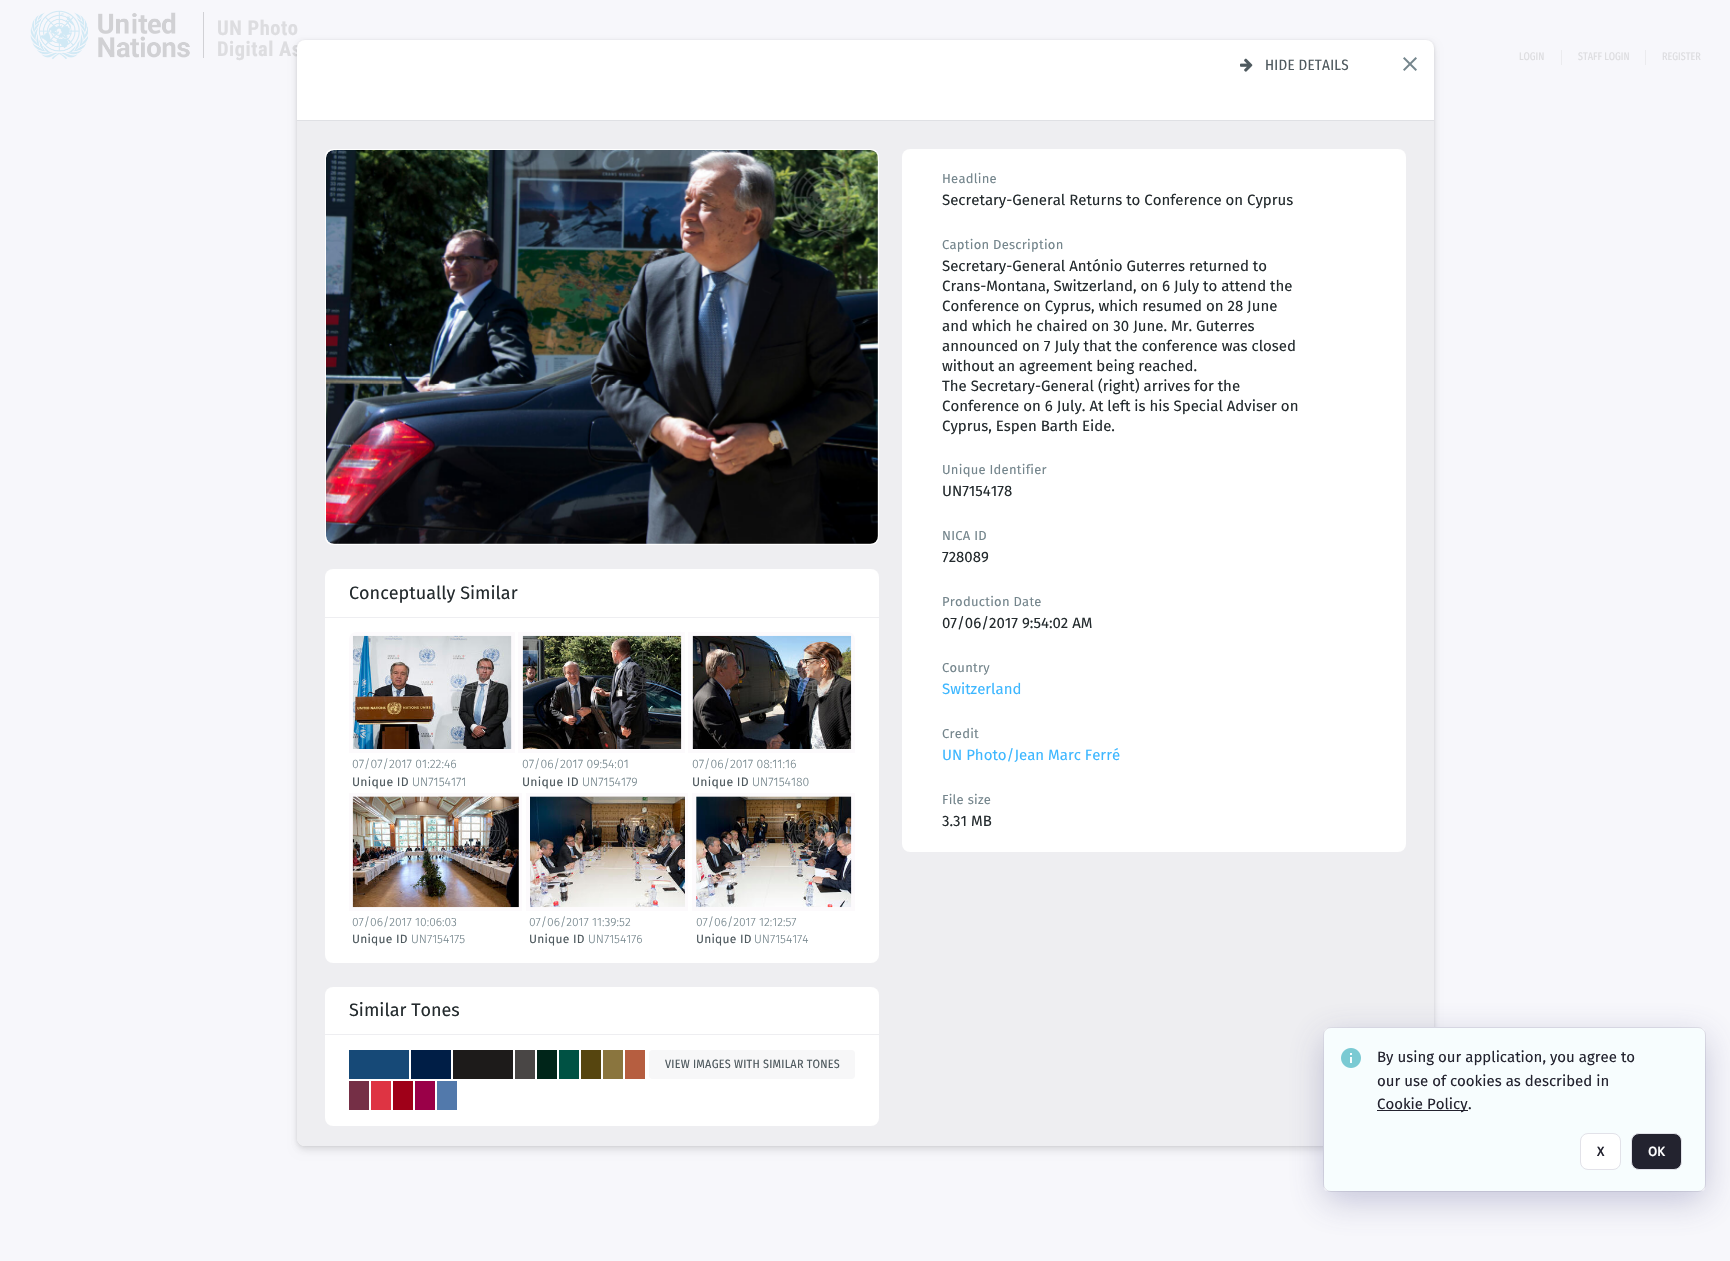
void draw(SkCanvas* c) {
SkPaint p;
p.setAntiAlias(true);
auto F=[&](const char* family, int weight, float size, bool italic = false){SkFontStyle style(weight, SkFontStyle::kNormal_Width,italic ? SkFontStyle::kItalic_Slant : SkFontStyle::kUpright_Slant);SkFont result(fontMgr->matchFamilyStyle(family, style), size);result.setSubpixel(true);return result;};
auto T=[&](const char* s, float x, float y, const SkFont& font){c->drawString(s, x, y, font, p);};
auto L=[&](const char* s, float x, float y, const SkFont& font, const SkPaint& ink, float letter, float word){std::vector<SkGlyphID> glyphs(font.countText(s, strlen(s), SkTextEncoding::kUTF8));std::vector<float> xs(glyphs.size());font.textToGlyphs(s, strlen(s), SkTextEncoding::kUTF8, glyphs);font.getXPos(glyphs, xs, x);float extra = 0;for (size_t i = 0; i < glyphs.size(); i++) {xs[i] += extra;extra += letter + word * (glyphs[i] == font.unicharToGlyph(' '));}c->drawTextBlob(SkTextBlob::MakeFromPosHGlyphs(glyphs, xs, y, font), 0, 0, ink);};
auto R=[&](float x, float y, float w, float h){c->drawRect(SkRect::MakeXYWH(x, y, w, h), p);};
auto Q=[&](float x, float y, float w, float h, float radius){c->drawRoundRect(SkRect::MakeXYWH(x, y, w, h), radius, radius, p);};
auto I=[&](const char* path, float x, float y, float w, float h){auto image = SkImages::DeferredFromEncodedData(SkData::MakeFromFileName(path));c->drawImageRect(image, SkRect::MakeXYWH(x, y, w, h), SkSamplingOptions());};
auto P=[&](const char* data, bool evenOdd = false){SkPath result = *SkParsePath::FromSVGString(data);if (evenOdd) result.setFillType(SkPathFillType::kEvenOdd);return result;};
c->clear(0xfff7f7fb);
I("1.png",30,10,160,50);
p.setColor(0xffd1d1d5);
R(203,12,1,46);
auto f1 = F("Roboto Condensed",700,20.5);
p.setColor(0xffdddde0);
L("UN Photo",217,35,f1,p,.5,0);
L("Digital As",217,56,f1,p,.5,0);
auto f2 = F("Fira Sans Extra Condensed",400,11);
T("LOGIN",1519,60,f2);
p.setColor(0xffebebee);
R(1561,50,1,15);
p.setColor(0xffdddde0);
T("STAFF LOGIN",1578,60,f2);
p.setColor(0xffebebee);
R(1645,50,1,15);
p.setColor(0xffdddde0);
T("REGISTER",1662,60,f2);
p.setColor(0x14000000);
p.setMaskFilter(SkMaskFilter::MakeBlur(kNormal_SkBlurStyle, 1.5));
c->drawRoundRect(SkRect::MakeXYWH(297,40,1137,1106),8,8,p);
p.setMaskFilter(nullptr);
p.setColor(0x0f000000);
p.setMaskFilter(SkMaskFilter::MakeBlur(kNormal_SkBlurStyle, 4.5));
c->drawRoundRect(SkRect::MakeXYWH(297,45,1137,1106),8,8,p);
p.setMaskFilter(nullptr);
p.setMaskFilter(SkMaskFilter::MakeBlur(kNormal_SkBlurStyle, 2.5));
c->drawRoundRect(SkRect::MakeXYWH(297,43,1137,1106),8,8,p);
p.setMaskFilter(nullptr);
p.setColor(0xffffffff);
Q(297,40,1137,1106,8);
I("2.png",1240,58,13,14);
auto f3 = F("Fira Sans Condensed",400,15);
p.setColor(0xff4f5a5f);
L("HIDE DETAILS",1265,70,f3,p,.25,0);
p.setColor(0xffdfe0e4);
R(297,120,1137,1);
p.setColor(0xffeeeef1);
c->drawPath(P("M297 121h1137v1017c0 4.5-3.5 8-8 8h-1121c-4.5 0-8-3.5-8-8z"),p);
p.setColor(0xffffffff);
Q(325,149,554,396,8);
I("3.png",326,150,552,394);
Q(325,569,554,394,8);
auto f4 = F("Fira Sans",400,18);
p.setColor(0xff242b2e);
T("Conceptually Similar",349,599,f4);
p.setColor(0xfffcfafc);
c->drawPath(P("M357 632h158v121h-166v-113c0-4.5 3.5-8 8-8z"),p);
I("4.png",352,635,160,114);
auto f5 = F("Fira Sans",300,12.25);
p.setColor(0xff74858c);
T("07/07/2017 01:22:46",352,768,f5);
auto f6 = F("Fira Sans",400,12.25);
p.setColor(0xff4f5a5f);
L("Unique ID",352,786,f6,p,.25,0);
p.setColor(0xff74858c);
T("UN7154171",412,786,f5);
p.setColor(0xfffcfafc);
R(518,632,167,121);
I("5.png",522,635,160,114);
p.setColor(0xff74858c);
T("07/06/2017 09:54:01",522,768,f5);
p.setColor(0xff4f5a5f);
L("Unique ID",522,786,f6,p,.25,0);
p.setColor(0xff74858c);
T("UN7154179",582,786,f5);
p.setColor(0xfffcfafc);
c->drawPath(P("M688 632h159c4.5 0 8 3.5 8 8v113h-167z"),p);
I("6.png",692,635,160,114);
p.setColor(0xff74858c);
T("07/06/2017 08:11:16",692,768,f5);
p.setColor(0xff4f5a5f);
L("Unique ID",692,786,f6,p,.25,0);
p.setColor(0xff74858c);
T("UN7154180",752,786,f5);
p.setColor(0xfffcfafc);
R(349,793,173,118);
I("7.png",352,796,167,112);
auto f7 = F("Fira Sans",300,12);
p.setColor(0xff74858c);
T("07/06/2017 10:06:03",352,926,f7);
auto f8 = F("Fira Sans",400,12);
p.setColor(0xff4f5a5f);
L("Unique ID",352,943,f8,p,.25,0);
p.setColor(0xff74858c);
T("UN7154175",411,943,f7);
p.setColor(0xfffcfafc);
R(526,793,162,118);
I("8.png",530,796,155,112);
p.setColor(0xff74858c);
T("07/06/2017 11:39:52",529,926,f7);
p.setColor(0xff4f5a5f);
L("Unique ID",529,943,f8,p,.25,0);
p.setColor(0xff74858c);
T("UN7154176",588,943,f7);
p.setColor(0xfffcfafc);
R(692,793,163,118);
I("9.png",696,796,156,112);
p.setColor(0xff74858c);
T("07/06/2017 12:12:57",696,926,f7);
p.setColor(0xff4f5a5f);
L("Unique ID",696,943,f8,p,.25,0);
p.setColor(0xff74858c);
T("UN7154174",754,943,f7);
p.setColor(0xffeeeef1);
R(325,617,554,1);
p.setColor(0xffffffff);
Q(325,987,554,139,8);
p.setColor(0xff242b2e);
T("Similar Tones",349,1016,f4);
p.setColor(0xff164977);
R(349,1050,60,29);
p.setColor(0xff001e46);
R(411,1050,40,29);
p.setColor(0xff1d1b1a);
R(453,1050,60,29);
p.setColor(0xff494645);
R(515,1050,20,29);
p.setColor(0xff002519);
R(537,1050,20,29);
p.setColor(0xff005244);
R(559,1050,20,29);
p.setColor(0xff56450f);
R(581,1050,20,29);
p.setColor(0xff8a753e);
R(603,1050,20,29);
p.setColor(0xffb65e40);
R(625,1050,20,29);
p.setColor(0xff752f46);
R(349,1081,20,29);
p.setColor(0xffde3443);
R(371,1081,20,29);
p.setColor(0xff9f0018);
R(393,1081,20,29);
p.setColor(0xff9a0048);
R(415,1081,20,29);
p.setColor(0xff5279ab);
R(437,1081,20,29);
p.setColor(0xfff7f7f8);
Q(649,1050,206,29,4);
auto f9 = F("Fira Sans Condensed",400,12);
p.setColor(0xff4f5a5f);
L("VIEW IMAGES WITH SIMILAR TONES",665,1068,f9,p,.25,0);
p.setColor(0xffeeeef1);
R(325,1034,554,1);
p.setColor(0xffffffff);
Q(902,149,504,703,8);
auto f10 = F("Fira Sans",400,13);
p.setColor(0xff74858c);
L("Headline",942,183,f10,p,.25,0);
auto f11 = F("Fira Sans",400,15);
p.setColor(0xff242b2e);
T("Secretary-General Returns to Conference on Cyprus",942,205,f11);
p.setColor(0xff74858c);
L("Caption Description",942,249,f10,p,.25,0);
p.setColor(0xff242b2e);
T("Secretary-General António Guterres returned to",942,271,f11);
T("Crans-Montana, Switzerland, on 6 July to attend the",942,291,f11);
T("Conference on Cyprus, which resumed on 28 June",942,311,f11);
T("and which he chaired on 30 June. Mr. Guterres",942,331,f11);
T("announced on 7 July that the conference was closed",942,351,f11);
T("without an agreement being reached.",942,371,f11);
T("The Secretary-General (right) arrives for the",942,391,f11);
T("Conference on 6 July. At left is his Special Adviser on",942,411,f11);
T("Cyprus, Espen Barth Eide.",942,431,f11);
p.setColor(0xff74858c);
L("Unique Identifier",942,474,f10,p,.25,0);
p.setColor(0xff242b2e);
T("UN7154178",942,496,f11);
p.setColor(0xff74858c);
L("NICA ID",942,540,f10,p,.25,0);
p.setColor(0xff242b2e);
T("728089",942,562,f11);
p.setColor(0xff74858c);
L("Production Date",942,606,f10,p,.25,0);
p.setColor(0xff242b2e);
T("07/06/2017 9:54:02 AM",942,628,f11);
p.setColor(0xff74858c);
L("Country",942,672,f10,p,.25,0);
p.setColor(0xff3db7ff);
T("Switzerland",942,694,f11);
p.setColor(0xff74858c);
L("Credit",942,738,f10,p,.25,0);
p.setColor(0xff3db7ff);
T("UN Photo/Jean Marc Ferré",942,760,f11);
p.setColor(0xff74858c);
L("File size",942,804,f10,p,.25,0);
p.setColor(0xff242b2e);
T("3.31 MB",942,826,f11);
I("10.png",1403,57,14,14);
p.setColor(0xfff7fdfe);
c->drawRoundRect(SkRect::MakeXYWH(1323.5,1027.5,382,164),7.5,7.5,p);
p.setStroke(true);
p.setStrokeWidth(1);
p.setColor(0xffe2e2e9);
c->drawRoundRect(SkRect::MakeXYWH(1323.5,1027.5,382,164),7.5,7.5,p);
c->save();
c->clipPath(P("M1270 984h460v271h-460zm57 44h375c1.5 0 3 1.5 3 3v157c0 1.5-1.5 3-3 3h-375c-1.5 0-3-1.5-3-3v-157c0-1.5 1.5-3 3-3z",true),true);
p.setStroke(false);
p.setColor(0x4d4d4d87);
p.setMaskFilter(SkMaskFilter::MakeBlur(kNormal_SkBlurStyle, 17.5));
c->drawRoundRect(SkRect::MakeXYWH(1324,1038,381,163),3,3,p);
p.setMaskFilter(nullptr);
c->restore();
I("11.png",1341,1048,20,20);
p.setColor(0xff23232f);
T("By using our application, you agree to",1377,1062,f11);
T("our use of cookies as described in",1377,1086,f11);
R(1377,1110,91,1);
T("Cookie Policy",1377,1109,f11);
T(".",1468,1109,f11);
p.setColor(0xffffffff);
c->drawRoundRect(SkRect::MakeXYWH(1580.5,1133.5,40,36),7.5,7.5,p);
p.setStroke(true);
p.setColor(0xffe2e2e9);
c->drawRoundRect(SkRect::MakeXYWH(1580.5,1133.5,40,36),7.5,7.5,p);
auto f12 = F("Fira Sans",700,13);
p.setStroke(false);
p.setColor(0xff23232f);
T("X",1597,1156,f12);
c->drawRoundRect(SkRect::MakeXYWH(1631.5,1133.5,50,36),7.5,7.5,p);
p.setStroke(true);
p.setColor(0xffe2e2e9);
c->drawRoundRect(SkRect::MakeXYWH(1631.5,1133.5,50,36),7.5,7.5,p);
p.setStroke(false);
p.setColor(0xffffffff);
T("OK",1648,1156,f12);
}
